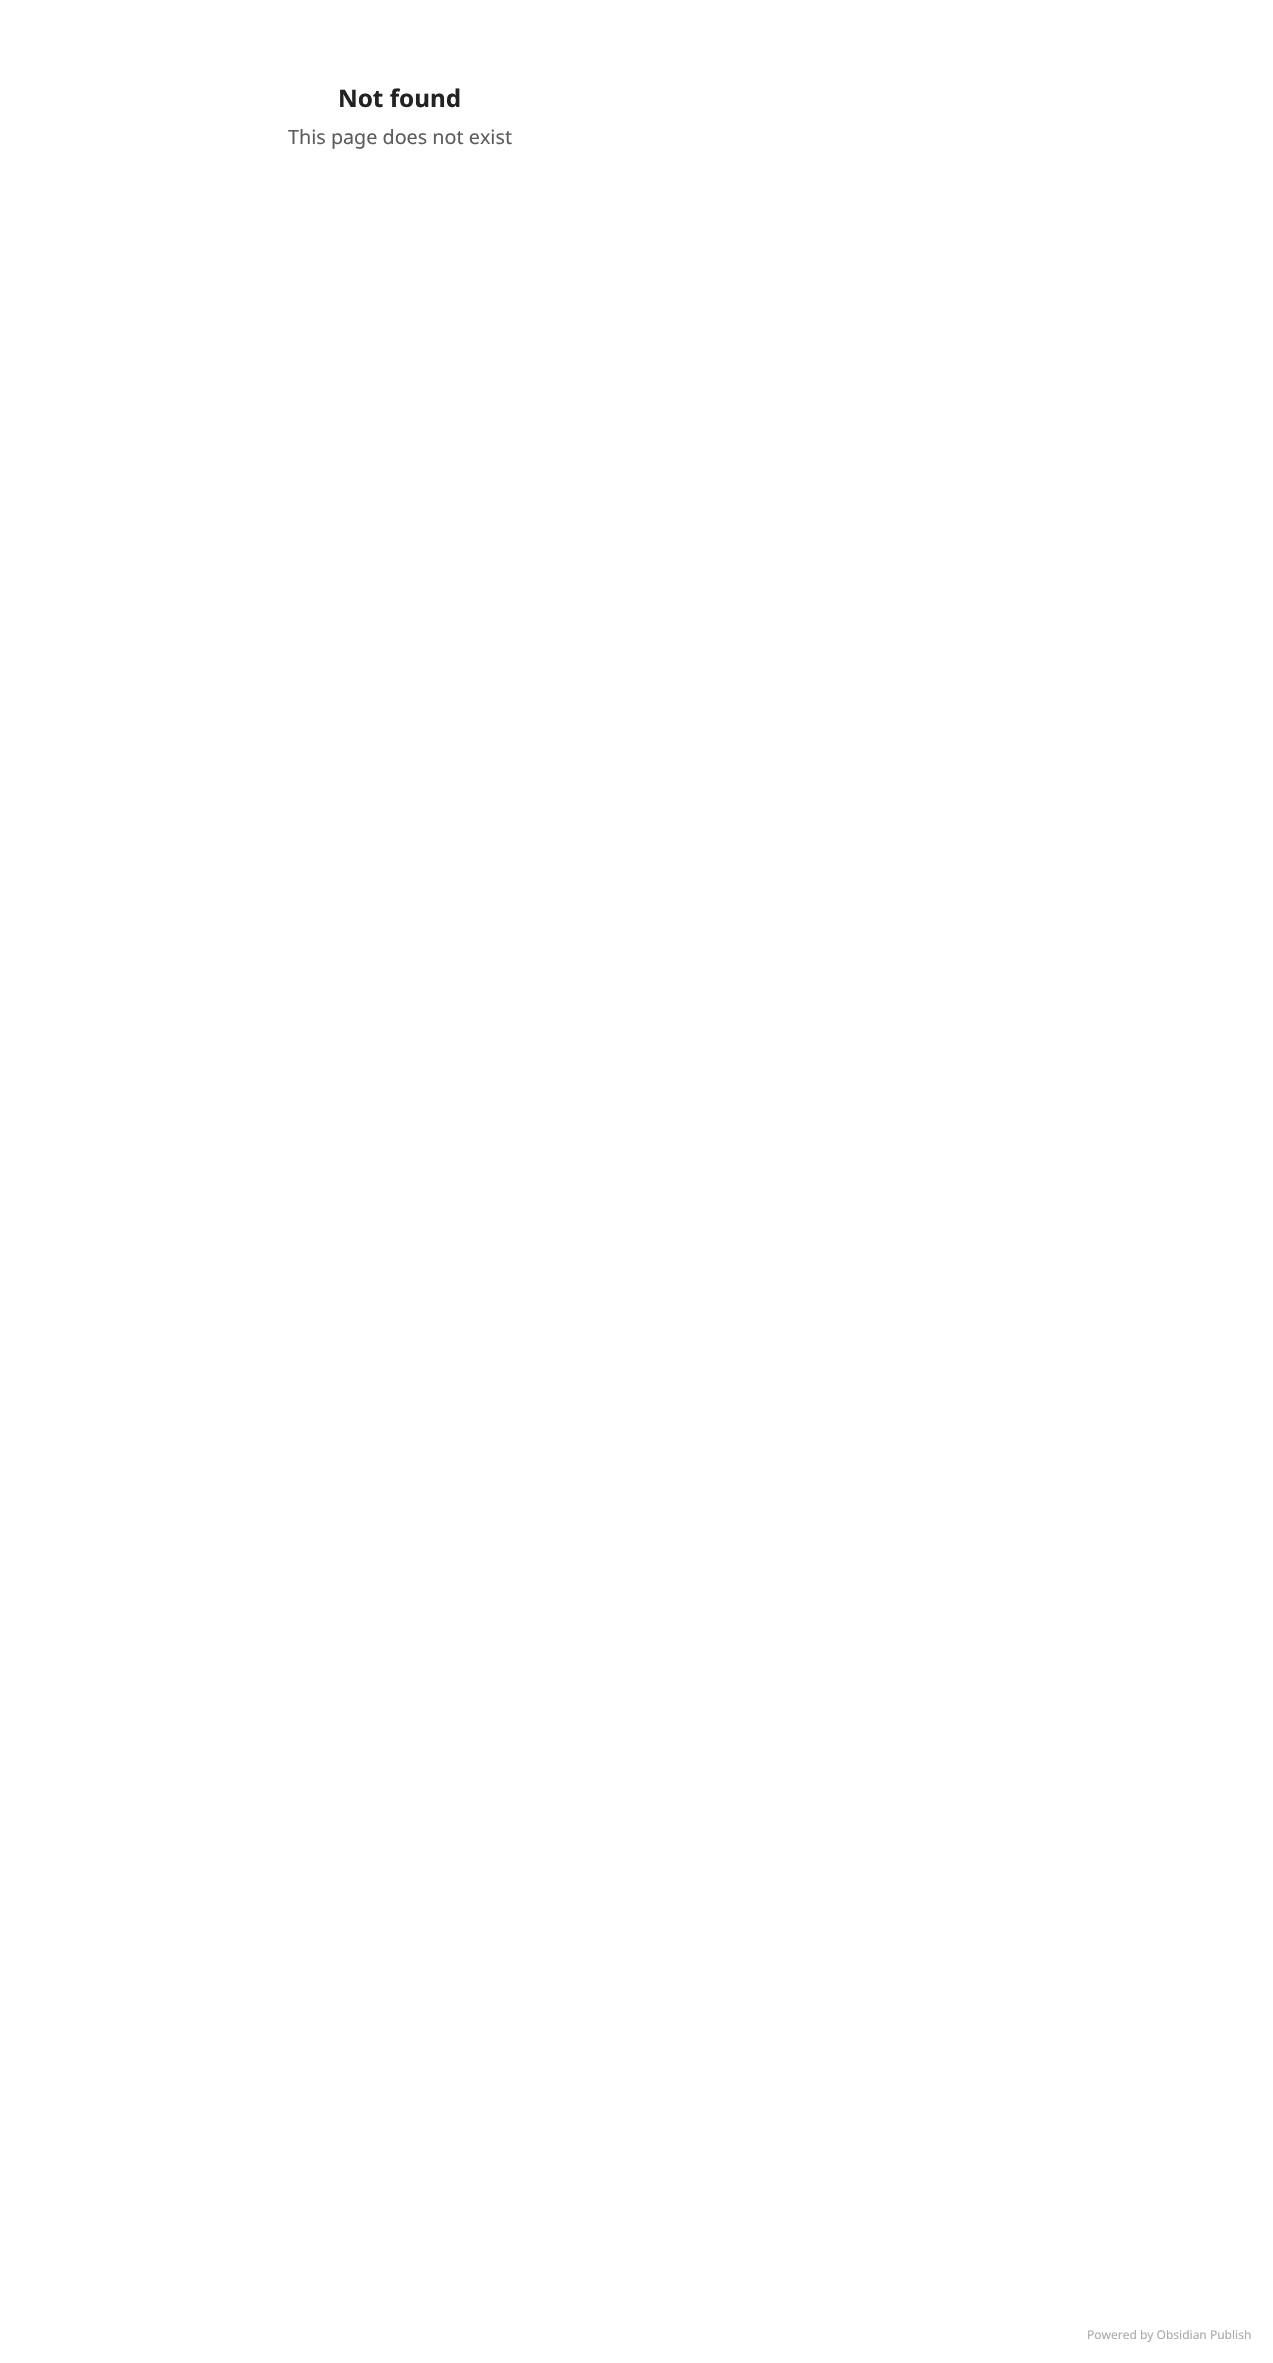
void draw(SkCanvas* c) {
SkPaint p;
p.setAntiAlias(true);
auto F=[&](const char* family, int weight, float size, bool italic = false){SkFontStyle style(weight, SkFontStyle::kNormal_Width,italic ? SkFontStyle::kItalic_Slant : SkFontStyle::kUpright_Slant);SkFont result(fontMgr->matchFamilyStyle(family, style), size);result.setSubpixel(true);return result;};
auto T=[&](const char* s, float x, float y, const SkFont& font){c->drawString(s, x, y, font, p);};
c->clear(0xffffffff);
auto f1 = F("Noto Sans",700,24.25);
p.setColor(0xff222222);
T("Not found",338,107,f1);
auto f2 = F("Noto Sans",400,19.75);
p.setColor(0xff5c5c5c);
T("This page does not exist",288,144,f2);
auto f3 = F("Noto Sans",400,12);
p.setColor(0xffababab);
T("Powered by Obsidian Publish",1087,2339,f3);
}
